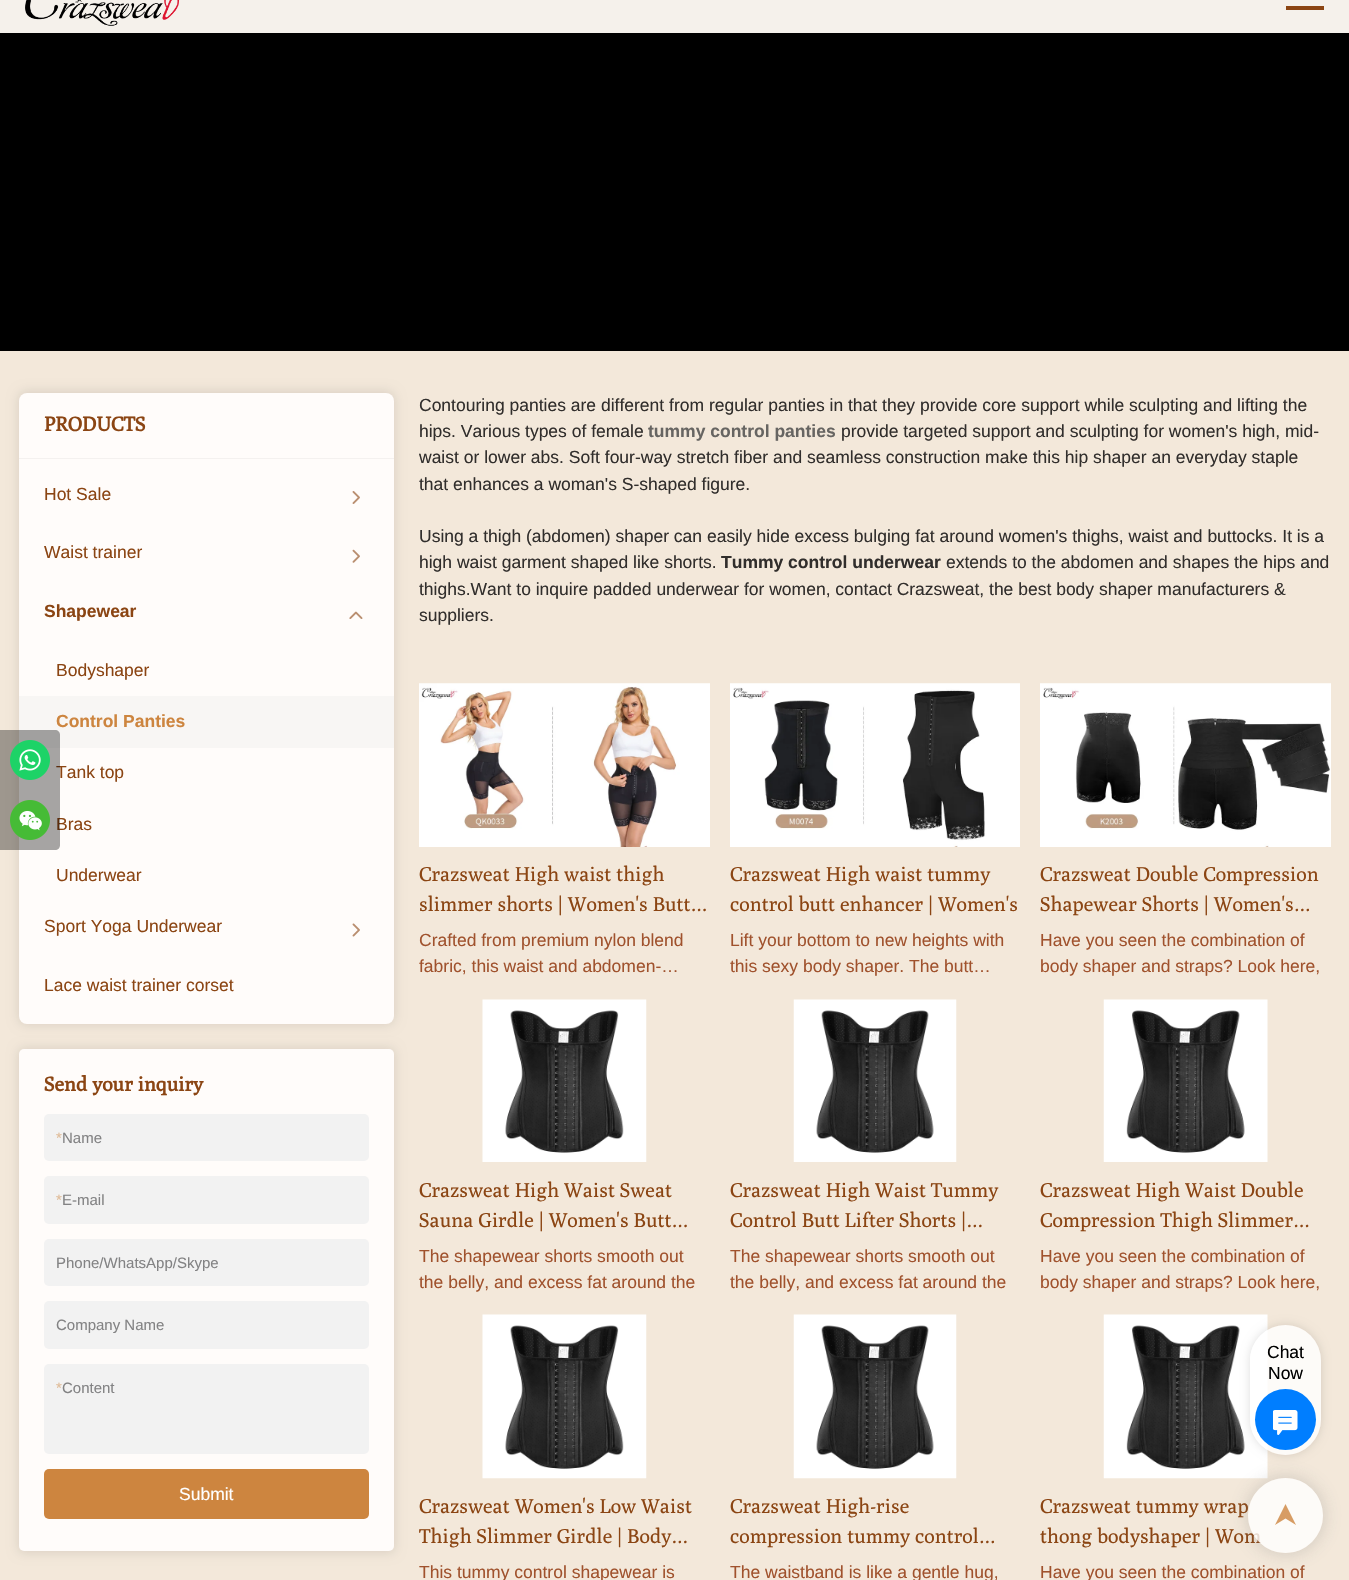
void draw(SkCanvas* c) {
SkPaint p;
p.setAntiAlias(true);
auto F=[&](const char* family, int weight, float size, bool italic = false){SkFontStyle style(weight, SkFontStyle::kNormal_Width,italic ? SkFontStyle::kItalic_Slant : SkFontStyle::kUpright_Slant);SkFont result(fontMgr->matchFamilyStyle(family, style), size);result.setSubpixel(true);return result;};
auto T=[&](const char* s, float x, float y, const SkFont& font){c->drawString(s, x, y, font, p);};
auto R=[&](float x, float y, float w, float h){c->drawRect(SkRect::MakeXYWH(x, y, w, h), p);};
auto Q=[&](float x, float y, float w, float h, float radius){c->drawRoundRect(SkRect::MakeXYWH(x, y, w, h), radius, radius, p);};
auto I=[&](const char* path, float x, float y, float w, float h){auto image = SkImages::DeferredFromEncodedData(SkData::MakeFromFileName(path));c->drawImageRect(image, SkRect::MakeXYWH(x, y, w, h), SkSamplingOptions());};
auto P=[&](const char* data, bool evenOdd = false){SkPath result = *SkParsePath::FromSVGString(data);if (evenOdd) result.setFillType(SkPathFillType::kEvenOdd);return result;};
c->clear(0xff000000);
p.setColor(0xfff5f1eb);
R(0,0,1349,33);
I("1.png",25,0,155,26);
p.setColor(0xff8b4513);
R(1286,6,38,4);
p.setColor(0xfff3e8da);
R(0,351,1349,1229);
p.setColor(0x1a000000);
p.setMaskFilter(SkMaskFilter::MakeBlur(kNormal_SkBlurStyle, 5.5));
c->drawRoundRect(SkRect::MakeXYWH(18,391,377,634),9,9,p);
p.setMaskFilter(nullptr);
p.setColor(0xfffffcfa);
Q(19,393,375,631,8);
p.setColor(0xfff8f6f4);
R(19,696,375,52);
auto f1 = F("Liberation Sans",400,17.5);
p.setColor(0xff8b4513);
T("Tank top",56,778,f1);
T("Bras",56,830,f1);
p.setColor(0x59000000);
c->drawPath(P("M0 730h55c3 0 5 2 5 5v110c0 3-2 5-5 5h-55z"),p);
I("2.png",10,740,40,40);
I("3.png",10,800,40,40);
p.setColor(0xfff4f1ef);
R(19,458,375,1);
auto f2 = F("Poly",700,20);
p.setColor(0xff8b4513);
T("PRODUCTS",44,431,f2);
T("Hot Sale",44,500,f1);
I("4.png",352,491,8,13);
T("Waist trainer",44,558,f1);
I("5.png",352,549,8,14);
auto f3 = F("Liberation Sans",700,17.5);
T("Shapewear",44,617,f3);
I("6.png",349,611,14,8);
T("Bodyshaper",56,676,f1);
p.setColor(0xffcd853f);
T("Control Panties",56,727,f3);
p.setColor(0xff8b4513);
T("Underwear",56,881,f1);
T("Sport Yoga Underwear",44,932,f1);
I("7.png",352,923,8,14);
T("Lace waist trainer corset",44,991,f1);
p.setColor(0x1a000000);
p.setMaskFilter(SkMaskFilter::MakeBlur(kNormal_SkBlurStyle, 5.5));
c->drawRoundRect(SkRect::MakeXYWH(18,1048,377,505),6,6,p);
p.setMaskFilter(nullptr);
p.setColor(0xfffffcfa);
Q(19,1049,375,502,5);
p.setColor(0xff8b4513);
T("Send your inquiry",44,1091,f2);
p.setColor(0xfff2f2f2);
Q(44,1114,325,47,5);
auto f4 = F("Liberation Sans",400,15);
p.setColor(0xffe0bc99);
T("*",56,1143,f4);
p.setColor(0xff838384);
T("Name",62,1143,f4);
p.setColor(0xfff2f2f2);
Q(44,1176,325,48,5);
p.setColor(0xffe0bc99);
T("*",56,1205,f4);
p.setColor(0xff838384);
T("E-mail",62,1205,f4);
p.setColor(0xfff2f2f2);
Q(44,1239,325,47,5);
p.setColor(0xff838384);
T("Phone/WhatsApp/Skype",56,1268,f4);
p.setColor(0xfff2f2f2);
Q(44,1301,325,48,5);
p.setColor(0xff838384);
T("Company Name",56,1330,f4);
p.setColor(0xfff2f2f2);
Q(44,1364,325,90,5);
p.setColor(0xffe0bc99);
T("*",56,1393,f4);
p.setColor(0xff838384);
T("Content",62,1393,f4);
p.setColor(0xffcd853f);
Q(44,1469,325,50,5);
p.setColor(0xffffffff);
T("Submit",179,1500,f1);
p.setColor(0xff312e2c);
T("Contouring panties are different from regular panties in that they provide core support while sculpting and lifting the",419,411,f1);
T("hips. Various types of female",419,437,f1);
p.setColor(0xff676562);
T("tummy control panties",648,437,f3);
p.setColor(0xff312e2c);
T("provide targeted support and sculpting for women's high, mid-",841,437,f1);
T("waist or lower abs. Soft four-way stretch fiber and seamless construction make this hip shaper an everyday staple",419,463,f1);
T("that enhances a woman's S-shaped figure.",419,490,f1);
T("Using a thigh (abdomen) shaper can easily hide excess bulging fat around women's thighs, waist and buttocks. It is a",419,542,f1);
T("high waist garment shaped like shorts.",419,568,f1);
T("Tummy control underwear",721,568,f3);
T("extends to the abdomen and shapes the hips and",946,568,f1);
T("thighs.Want to inquire padded underwear for women, contact Crazsweat, the best body shaper manufacturers &",419,595,f1);
T("suppliers.",419,621,f1);
I("8.png",419,683,291,164);
auto f5 = F("Poly",400,20);
p.setColor(0xff8b4513);
T("Crazsweat High waist thigh",419,881,f5);
T("slimmer shorts | Women's Butt…",419,911,f5);
p.setColor(0xffa0522d);
T("Crafted from premium nylon blend",419,946,f1);
T("fabric, this waist and abdomen-…",419,972,f1);
I("9.png",730,683,290,164);
p.setColor(0xff8b4513);
T("Crazsweat High waist tummy",730,881,f5);
T("control butt enhancer | Women's",730,911,f5);
p.setColor(0xffa0522d);
T("Lift your bottom to new heights with",730,946,f1);
T("this sexy body shaper. The butt…",730,972,f1);
I("10.png",1040,683,291,164);
p.setColor(0xff8b4513);
T("Crazsweat Double Compression",1040,881,f5);
T("Shapewear Shorts | Women's…",1040,911,f5);
p.setColor(0xffa0522d);
T("Have you seen the combination of",1040,946,f1);
T("body shaper and straps? Look here,",1040,972,f1);
I("11.png",482,999,165,163);
p.setColor(0xff8b4513);
T("Crazsweat High Waist Sweat",419,1197,f5);
T("Sauna Girdle | Women's Butt…",419,1227,f5);
p.setColor(0xffa0522d);
T("The shapewear shorts smooth out",419,1262,f1);
T("the belly, and excess fat around the",419,1288,f1);
I("12.png",793,999,164,163);
p.setColor(0xff8b4513);
T("Crazsweat High Waist Tummy",730,1197,f5);
T("Control Butt Lifter Shorts |…",730,1227,f5);
p.setColor(0xffa0522d);
T("The shapewear shorts smooth out",730,1262,f1);
T("the belly, and excess fat around the",730,1288,f1);
I("13.png",1103,999,165,163);
p.setColor(0xff8b4513);
T("Crazsweat High Waist Double",1040,1197,f5);
T("Compression Thigh Slimmer…",1040,1227,f5);
p.setColor(0xffa0522d);
T("Have you seen the combination of",1040,1262,f1);
T("body shaper and straps? Look here,",1040,1288,f1);
I("14.png",482,1314,165,165);
p.setColor(0xff8b4513);
T("Crazsweat Women's Low Waist",419,1513,f5);
T("Thigh Slimmer Girdle | Body…",419,1543,f5);
p.setColor(0xffa0522d);
T("This tummy control shapewear is",419,1578,f1);
I("15.png",793,1314,164,165);
p.setColor(0xff8b4513);
T("Crazsweat High-rise",730,1513,f5);
T("compression tummy control…",730,1543,f5);
p.setColor(0xffa0522d);
T("The waistband is like a gentle hug,",730,1578,f1);
I("16.png",1103,1314,165,165);
p.setColor(0xff8b4513);
T("Crazsweat tummy wrap",1040,1513,f5);
T("thong bodyshaper | Wom",1040,1543,f5);
p.setColor(0xffa0522d);
T("Have you seen the combination of",1040,1578,f1);
c->save();
c->clipPath(P("M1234 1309h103v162h-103zm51.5 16c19.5 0 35.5 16 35.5 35.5v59c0 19.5-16 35.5-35.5 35.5c-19.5 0-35.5-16-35.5-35.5v-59c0-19.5 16-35.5 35.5-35.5z",true),true);
p.setColor(0x21000000);
p.setMaskFilter(SkMaskFilter::MakeBlur(kNormal_SkBlurStyle, 5));
c->drawRoundRect(SkRect::MakeXYWH(1250,1325,71,130),35.5,35.5,p);
p.setMaskFilter(nullptr);
c->restore();
c->save();
c->clipPath(P("M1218 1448h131v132h-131zm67.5 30c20.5 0 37.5 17 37.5 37.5c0 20.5-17 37.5-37.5 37.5c-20.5 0-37.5-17-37.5-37.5c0-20.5 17-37.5 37.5-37.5z",true),true);
p.setColor(0x527a7a7a);
p.setMaskFilter(SkMaskFilter::MakeBlur(kNormal_SkBlurStyle, 9.5));
c->drawRoundRect(SkRect::MakeXYWH(1248,1478,75,75),37.5,37.5,p);
p.setMaskFilter(nullptr);
c->restore();
p.setColor(0xccffffff);
Q(1250,1325,71,130,35.5);
p.setColor(0xff000000);
T("Chat",1267,1358,f1);
T("Now",1268,1379,f1);
p.setColor(0xff007eff);
c->drawCircle(1285.5,1419.5,30.5,p);
I("17.png",1273,1410,25,25);
p.setColor(0xccffffff);
c->drawCircle(1285.5,1515.5,37.5,p);
p.setColor(0xcccd853f);
c->drawPath(P("M1296 1525l-10.5-6.5l-10.5 6.5l10.5-21z"),p);
}
